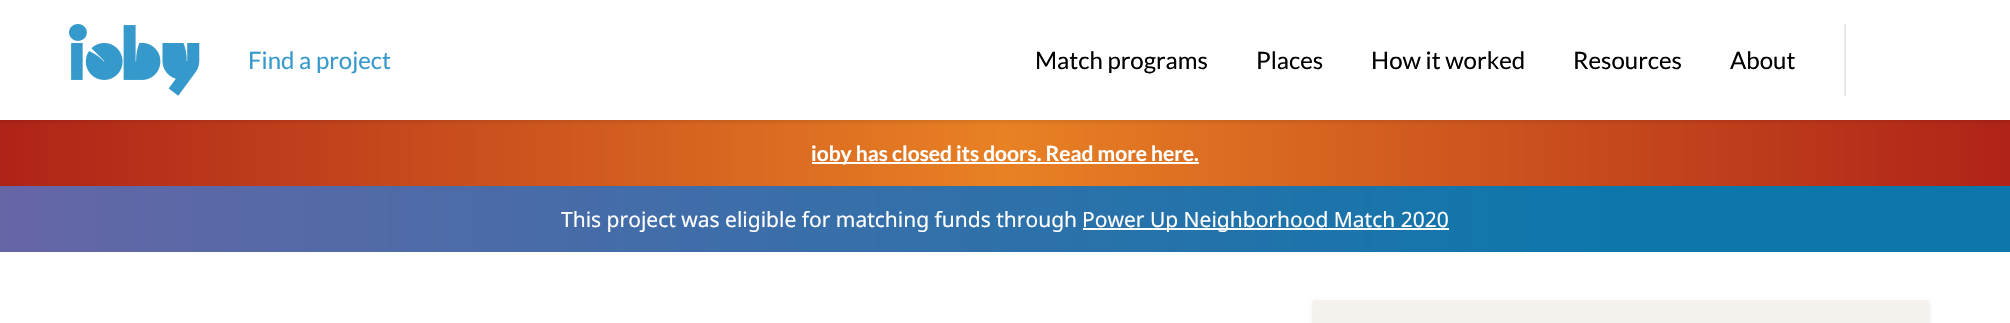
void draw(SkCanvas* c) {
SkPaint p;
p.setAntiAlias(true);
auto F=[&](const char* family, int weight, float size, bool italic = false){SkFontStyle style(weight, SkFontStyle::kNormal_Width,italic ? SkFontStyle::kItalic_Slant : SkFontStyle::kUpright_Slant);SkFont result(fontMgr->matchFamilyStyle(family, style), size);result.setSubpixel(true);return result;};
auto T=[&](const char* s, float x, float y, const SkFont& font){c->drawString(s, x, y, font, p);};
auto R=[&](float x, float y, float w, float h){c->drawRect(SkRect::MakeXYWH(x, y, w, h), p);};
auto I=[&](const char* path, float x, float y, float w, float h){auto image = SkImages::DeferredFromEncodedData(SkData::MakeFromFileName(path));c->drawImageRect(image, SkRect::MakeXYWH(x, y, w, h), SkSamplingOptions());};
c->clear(0xffffffff);
{
const SkColor colors[] = {0xffaf2318,0xffe88124,0xffaf2318};
const float stops[] = {0,.5,1};
const SkPoint ends[] = {{0,153}, {2010,153}};
p.setShader(SkGradientShader::MakeLinear(ends, colors, stops, 3, SkTileMode::kClamp));
p.setAlpha(255);
}
R(0,120,2010,66);
c->save();
c->clipRect(SkRect::MakeXYWH(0,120,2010,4));
p.setShader(nullptr);
p.setColor(0x1a000000);
p.setMaskFilter(SkMaskFilter::MakeBlur(kNormal_SkBlurStyle, 2));
c->drawRect(SkRect::MakeXYWH(0,2,2010,120),p);
p.setMaskFilter(nullptr);
c->restore();
I("1.png",69,24,131,72);
auto f1 = F("Lato",400,24);
p.setColor(0xff3599cc);
T("Find a project",248,69,f1);
p.setColor(0xff000000);
T("Match programs",1035,69,f1);
T("Places",1256,69,f1);
T("How it worked",1371,69,f1);
T("Resources",1573,69,f1);
T("About",1730,69,f1);
p.setColor(0xffe5e7eb);
R(1844,24,2,72);
p.setColor(0xffffffff);
R(812,162,387,2);
auto f2 = F("Lato",700,21);
T("ioby has closed its doors. Read more here.",811,161,f2);
{
const SkColor colors[] = {0xff6666a7,0xff0d77ab};
const float stops[] = {0,.8};
const SkPoint ends[] = {{0,219}, {2010,219}};
p.setShader(SkGradientShader::MakeLinear(ends, colors, stops, 2, SkTileMode::kClamp));
p.setAlpha(255);
}
R(0,186,2010,66);
auto f3 = F("Noto Sans",400,21);
p.setShader(nullptr);
p.setColor(0xffffffff);
T("This project was eligible for matching funds through",561,227,f3);
R(1083,228,366,2);
T("Power Up Neighborhood Match 2020",1082,227,f3);
p.setColor(0x1a000000);
p.setMaskFilter(SkMaskFilter::MakeBlur(kNormal_SkBlurStyle, 2));
c->drawRect(SkRect::MakeXYWH(1313,302,616,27),p);
p.setMaskFilter(nullptr);
p.setColor(0xfff5f2ed);
R(1313,300,616,23);
}
